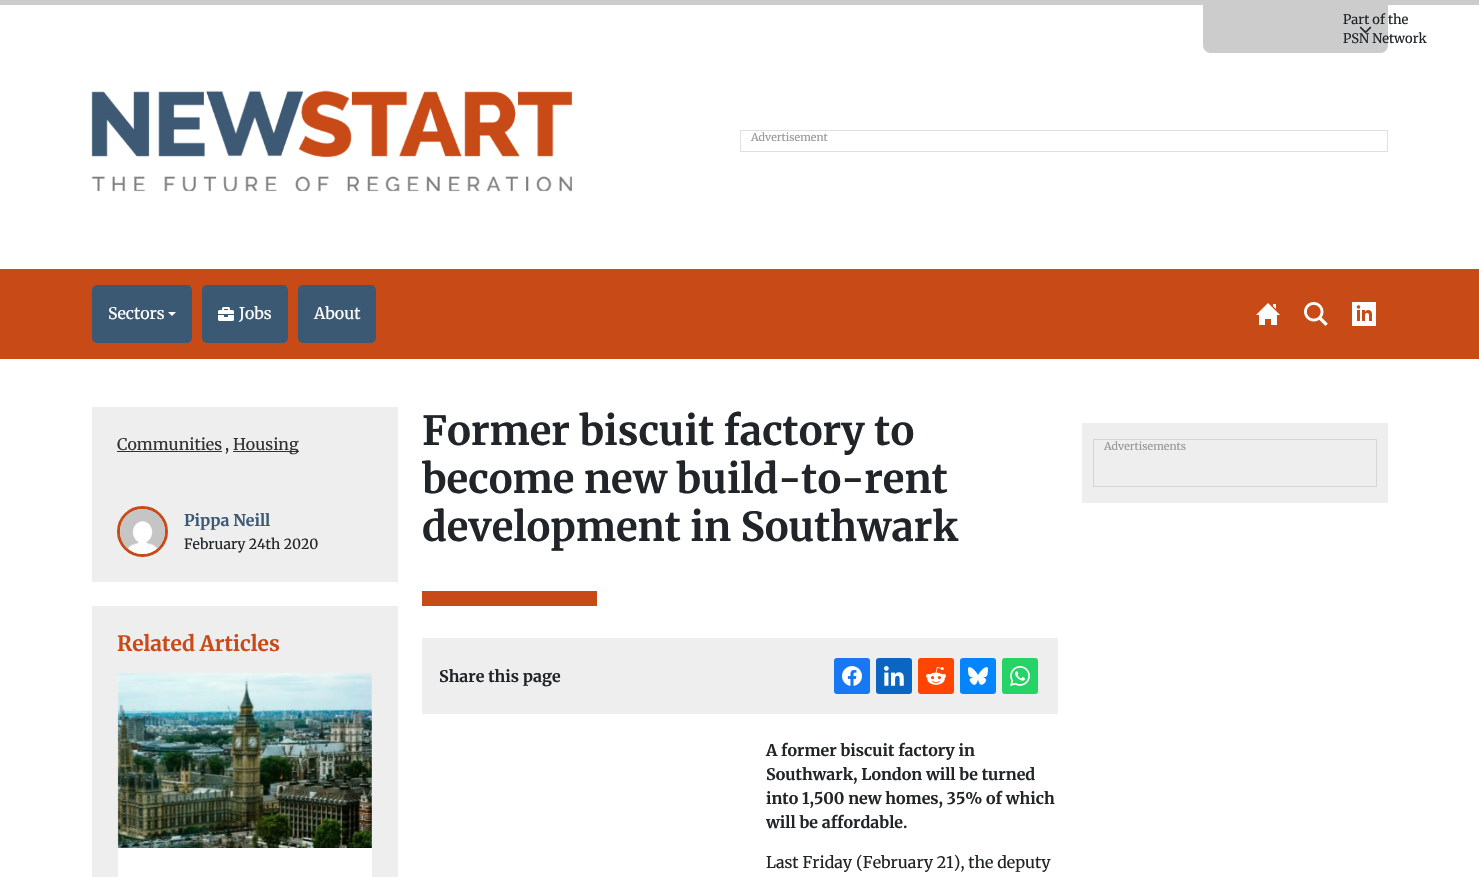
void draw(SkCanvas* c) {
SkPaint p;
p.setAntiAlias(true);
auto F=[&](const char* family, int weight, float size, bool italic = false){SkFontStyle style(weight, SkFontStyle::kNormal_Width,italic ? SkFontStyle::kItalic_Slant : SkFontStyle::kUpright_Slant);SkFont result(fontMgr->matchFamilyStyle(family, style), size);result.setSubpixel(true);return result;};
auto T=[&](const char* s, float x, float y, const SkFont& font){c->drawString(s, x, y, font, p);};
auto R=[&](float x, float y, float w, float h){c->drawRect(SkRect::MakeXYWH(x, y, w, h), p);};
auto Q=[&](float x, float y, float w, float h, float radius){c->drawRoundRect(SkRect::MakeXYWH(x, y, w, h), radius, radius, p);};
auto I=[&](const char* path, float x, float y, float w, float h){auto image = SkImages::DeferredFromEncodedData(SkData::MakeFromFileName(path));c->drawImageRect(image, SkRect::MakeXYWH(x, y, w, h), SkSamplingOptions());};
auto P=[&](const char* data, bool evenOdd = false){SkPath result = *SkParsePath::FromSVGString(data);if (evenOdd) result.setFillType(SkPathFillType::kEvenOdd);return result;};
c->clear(0xffffffff);
p.setColor(0xffcccccc);
R(0,0,1479,5);
c->drawPath(P("M1203 5h185v40c0 4.5-3.5 8-8 8h-169c-4.5 0-8-3.5-8-8z"),p);
auto f1 = F("Merriweather",400,13);
p.setColor(0xff212529);
T("Part of the",1343,24,f1);
T("PSN Network",1343,43,f1);
I("1.png",1359,26,13,8);
I("2.png",91,90,481,102);
p.setStroke(true);
p.setStrokeWidth(1);
p.setColor(0xffe0e0e0);
c->drawRect(SkRect::MakeXYWH(740.5,130.5,647,21),p);
auto f2 = F("Merriweather",400,10.75);
p.setStroke(false);
p.setColor(0xff999999);
T("Advertisement",751,141,f2);
p.setColor(0xffc74a17);
R(0,269,1479,90);
p.setColor(0xff3c5973);
Q(92,285,100,58,5);
auto f3 = F("Merriweather",400,16);
p.setColor(0xffffffff);
T("Sectors",108,319,f3);
c->drawPath(P("M168 312h8l-4 4z"),p);
p.setColor(0xff3c5973);
Q(202,285,86,58,5);
I("3.png",218,307,16,14);
p.setColor(0xffffffff);
T("Jobs",239,319,f3);
p.setColor(0xff3c5973);
Q(298,285,78,58,5);
p.setColor(0xffffffff);
T("About",314,319,f3);
I("4.png",1256,303,24,22);
I("5.png",1304,302,24,24);
I("6.png",1352,302,24,24);
p.setColor(0xffeeeeee);
R(92,407,306,175);
p.setColor(0xff333333);
T("Communities",117,450,f3);
R(117,451,105,1);
p.setColor(0xff212529);
T(",",225,450,f3);
p.setColor(0xff333333);
R(233,451,66,1);
T("Housing",233,450,f3);
p.setStroke(true);
p.setStrokeWidth(3);
p.setColor(0xffc74a17);
c->drawCircle(142.5,531.5,24,p);
I("7.png",120,509,45,45);
auto f4 = F("Merriweather",700,16);
p.setStroke(false);
p.setColor(0xff3c5973);
T("Pippa Neill",184,526,f4);
auto f5 = F("Merriweather",400,14);
p.setColor(0xff212529);
T("February 24th 2020",184,549,f5);
p.setColor(0xffeeeeee);
R(92,606,306,271);
auto f6 = F("Merriweather",700,21);
p.setColor(0xffc74a17);
T("Related Articles",117,651,f6);
p.setColor(0xffffffff);
R(118,673,254,204);
I("8.png",117,673,255,175);
auto f7 = F("Merriweather",700,40);
p.setColor(0xff212529);
T("Former biscuit factory to",422,445,f7);
T("become new build-to-rent",422,493,f7);
T("development in Southwark",422,541,f7);
p.setColor(0xffc74a17);
R(422,591,175,15);
p.setColor(0xffeeeeee);
R(422,638,636,76);
p.setColor(0xff212529);
T("Share this page",439,682,f4);
p.setColor(0xff1877f2);
Q(834,658,36,36,3);
I("9.png",842,666,20,20);
p.setColor(0xff0a66c2);
Q(876,658,36,36,3);
I("10.png",884,666,20,20);
p.setColor(0xffff4500);
Q(918,658,36,36,3);
I("11.png",926,667,20,18);
p.setColor(0xff0285ff);
Q(960,658,36,36,3);
I("12.png",968,667,20,18);
p.setColor(0xff25d366);
Q(1002,658,36,36,3);
I("13.png",1010,666,20,20);
p.setColor(0xff212529);
T("A former biscuit factory in",766,756,f4);
T("Southwark, London will be turned",766,780,f4);
T("into 1,500 new homes, 35% of which",766,804,f4);
T("will be affordable.",766,828,f4);
T("Last Friday (February 21), the deputy",766,868,f3);
p.setColor(0xffeeeeee);
R(1082,423,306,80);
p.setStroke(true);
p.setStrokeWidth(1);
p.setColor(0xffd5d5d5);
c->drawRect(SkRect::MakeXYWH(1093.5,439.5,283,47),p);
p.setStroke(false);
p.setColor(0xff999999);
T("Advertisements",1104,450,f2);
}
